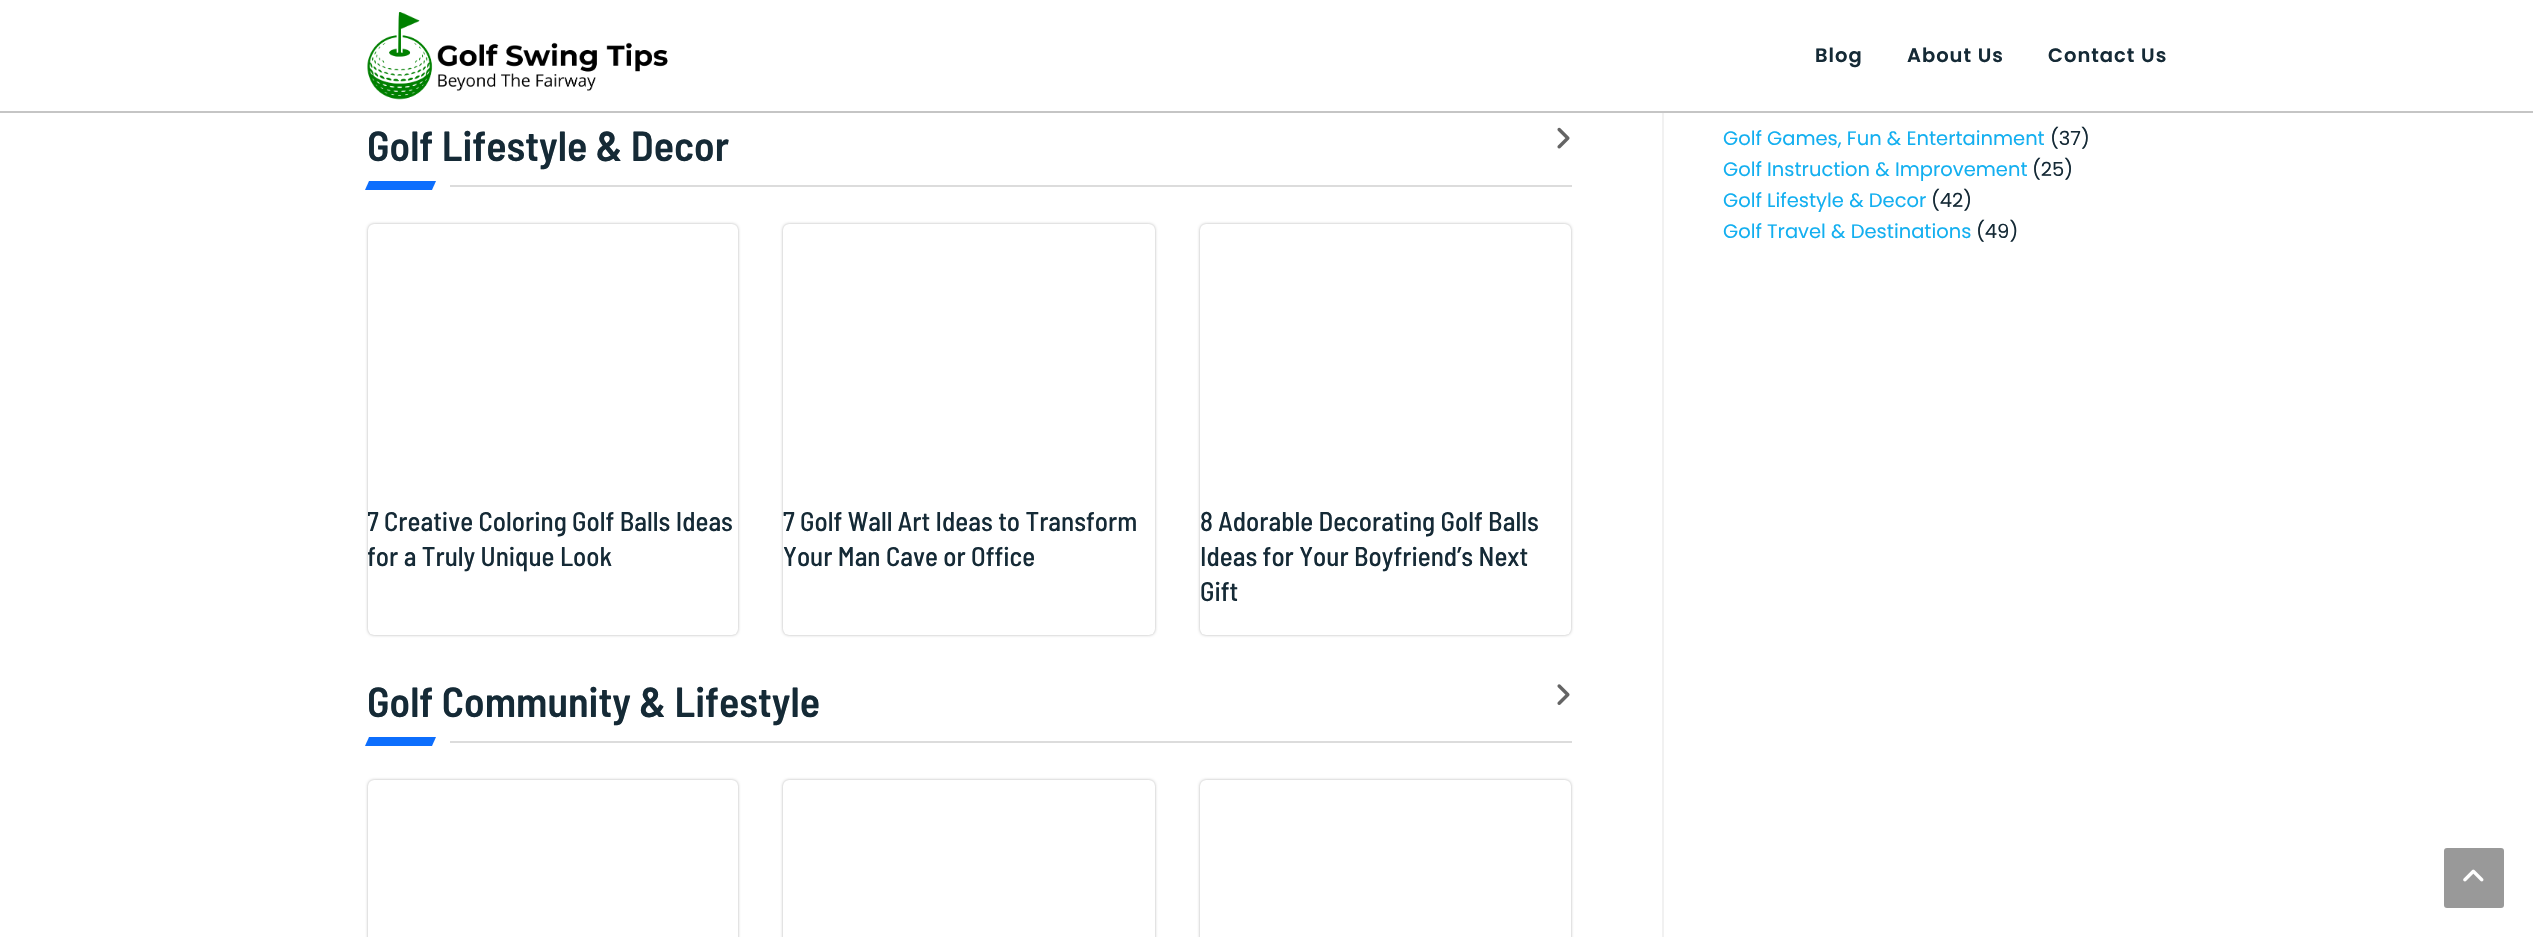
void draw(SkCanvas* c) {
SkPaint p;
p.setAntiAlias(true);
auto F=[&](const char* family, int weight, float size, bool italic = false){SkFontStyle style(weight, SkFontStyle::kNormal_Width,italic ? SkFontStyle::kItalic_Slant : SkFontStyle::kUpright_Slant);SkFont result(fontMgr->matchFamilyStyle(family, style), size);result.setSubpixel(true);return result;};
auto T=[&](const char* s, float x, float y, const SkFont& font){c->drawString(s, x, y, font, p);};
auto L=[&](const char* s, float x, float y, const SkFont& font, const SkPaint& ink, float letter, float word){std::vector<SkGlyphID> glyphs(font.countText(s, strlen(s), SkTextEncoding::kUTF8));std::vector<float> xs(glyphs.size());font.textToGlyphs(s, strlen(s), SkTextEncoding::kUTF8, glyphs);font.getXPos(glyphs, xs, x);float extra = 0;for (size_t i = 0; i < glyphs.size(); i++) {xs[i] += extra;extra += letter + word * (glyphs[i] == font.unicharToGlyph(' '));}c->drawTextBlob(SkTextBlob::MakeFromPosHGlyphs(glyphs, xs, y, font), 0, 0, ink);};
auto R=[&](float x, float y, float w, float h){c->drawRect(SkRect::MakeXYWH(x, y, w, h), p);};
auto Q=[&](float x, float y, float w, float h, float radius){c->drawRoundRect(SkRect::MakeXYWH(x, y, w, h), radius, radius, p);};
auto I=[&](const char* path, float x, float y, float w, float h){auto image = SkImages::DeferredFromEncodedData(SkData::MakeFromFileName(path));c->drawImageRect(image, SkRect::MakeXYWH(x, y, w, h), SkSamplingOptions());};
auto P=[&](const char* data, bool evenOdd = false){SkPath result = *SkParsePath::FromSVGString(data);if (evenOdd) result.setFillType(SkPathFillType::kEvenOdd);return result;};
c->clear(0xffffffff);
p.setColor(0xffc5c5c5);
R(0,111,2533,2);
I("1.png",367,12,301,88);
auto f1 = F("Poppins",600,19.5);
p.setColor(0xff152a36);
L("Blog",1815,62,f1,p,1,0);
L("About Us",1907,62,f1,p,1,0);
L("Contact Us",2048,62,f1,p,1,0);
p.setColor(0xfff1f1f1);
R(1662,113,2,824);
auto f2 = F("Barlow Semi Condensed",600,42);
p.setColor(0xff152a36);
T("Golf Lifestyle & Decor",367,161,f2);
I("2.png",1557,127,13,22);
p.setColor(0xff0d6efd);
c->drawPath(P("M369 181h67l-4 9h-67z"),p);
p.setColor(0xffdcdcdc);
R(450,185,1122,2);
p.setColor(0x4d000000);
p.setMaskFilter(SkMaskFilter::MakeBlur(kNormal_SkBlurStyle, 1.5));
c->drawRoundRect(SkRect::MakeXYWH(368,224,370,411),6,6,p);
p.setMaskFilter(nullptr);
p.setColor(0xffffffff);
Q(368,224,370,411,6);
c->save();
c->clipPath(P("M374 224h358c3.5 0 6 2.5 6 6v399c0 3.5-2.5 6-6 6h-358c-3.5 0-6-2.5-6-6v-399c0-3.5 2.5-6 6-6z"),true);
auto f3 = F("Barlow Semi Condensed",500,27);
p.setColor(0xff152a36);
T("7 Creative Coloring Golf Balls Ideas",367,531,f3);
T("for a Truly Unique Look",367,566,f3);
c->restore();
p.setColor(0x4d000000);
p.setMaskFilter(SkMaskFilter::MakeBlur(kNormal_SkBlurStyle, 1.5));
c->drawRoundRect(SkRect::MakeXYWH(783,224,372,411),6,6,p);
p.setMaskFilter(nullptr);
p.setColor(0xffffffff);
Q(783,224,372,411,6);
p.setColor(0xff152a36);
T("7 Golf Wall Art Ideas to Transform",783,531,f3);
T("Your Man Cave or Office",783,566,f3);
p.setColor(0x4d000000);
p.setMaskFilter(SkMaskFilter::MakeBlur(kNormal_SkBlurStyle, 1.5));
c->drawRoundRect(SkRect::MakeXYWH(1200,224,371,411),6,6,p);
p.setMaskFilter(nullptr);
p.setColor(0xffffffff);
Q(1200,224,371,411,6);
p.setColor(0xff152a36);
T("8 Adorable Decorating Golf Balls",1200,531,f3);
T("Ideas for Your Boyfriend’s Next",1200,566,f3);
T("Gift",1200,601,f3);
T("Golf Community & Lifestyle",367,717,f2);
I("3.png",1557,684,13,21);
p.setColor(0xff0d6efd);
c->drawPath(P("M369 737h67l-4 9h-67z"),p);
p.setColor(0xffdcdcdc);
R(450,741,1122,2);
p.setColor(0x4d000000);
p.setMaskFilter(SkMaskFilter::MakeBlur(kNormal_SkBlurStyle, 1.5));
c->drawRoundRect(SkRect::MakeXYWH(368,780,370,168),6,6,p);
p.setMaskFilter(nullptr);
p.setColor(0xffffffff);
Q(368,780,370,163,6);
p.setColor(0x4d000000);
p.setMaskFilter(SkMaskFilter::MakeBlur(kNormal_SkBlurStyle, 1.5));
c->drawRoundRect(SkRect::MakeXYWH(783,780,372,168),6,6,p);
p.setMaskFilter(nullptr);
p.setColor(0xffffffff);
Q(783,780,372,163,6);
p.setColor(0x4d000000);
p.setMaskFilter(SkMaskFilter::MakeBlur(kNormal_SkBlurStyle, 1.5));
c->drawRoundRect(SkRect::MakeXYWH(1200,780,371,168),6,6,p);
p.setMaskFilter(nullptr);
p.setColor(0xffffffff);
Q(1200,780,371,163,6);
auto f4 = F("Poppins",400,19.5);
p.setColor(0xff13aff0);
T("Golf Games, Fun & Entertainment",1723,145,f4);
p.setColor(0xff152a36);
T("(37)",2050,145,f4);
p.setColor(0xff13aff0);
T("Golf Instruction & Improvement",1723,176,f4);
p.setColor(0xff152a36);
T("(25)",2032,176,f4);
p.setColor(0xff13aff0);
T("Golf Lifestyle & Decor",1723,207,f4);
p.setColor(0xff152a36);
T("(42)",1931,207,f4);
p.setColor(0xff13aff0);
T("Golf Travel & Destinations",1723,238,f4);
p.setColor(0xff152a36);
T("(49)",1976,238,f4);
p.setColor(0xff999999);
Q(2444,848,60,60,3);
I("4.png",2463,869,21,13);
}
